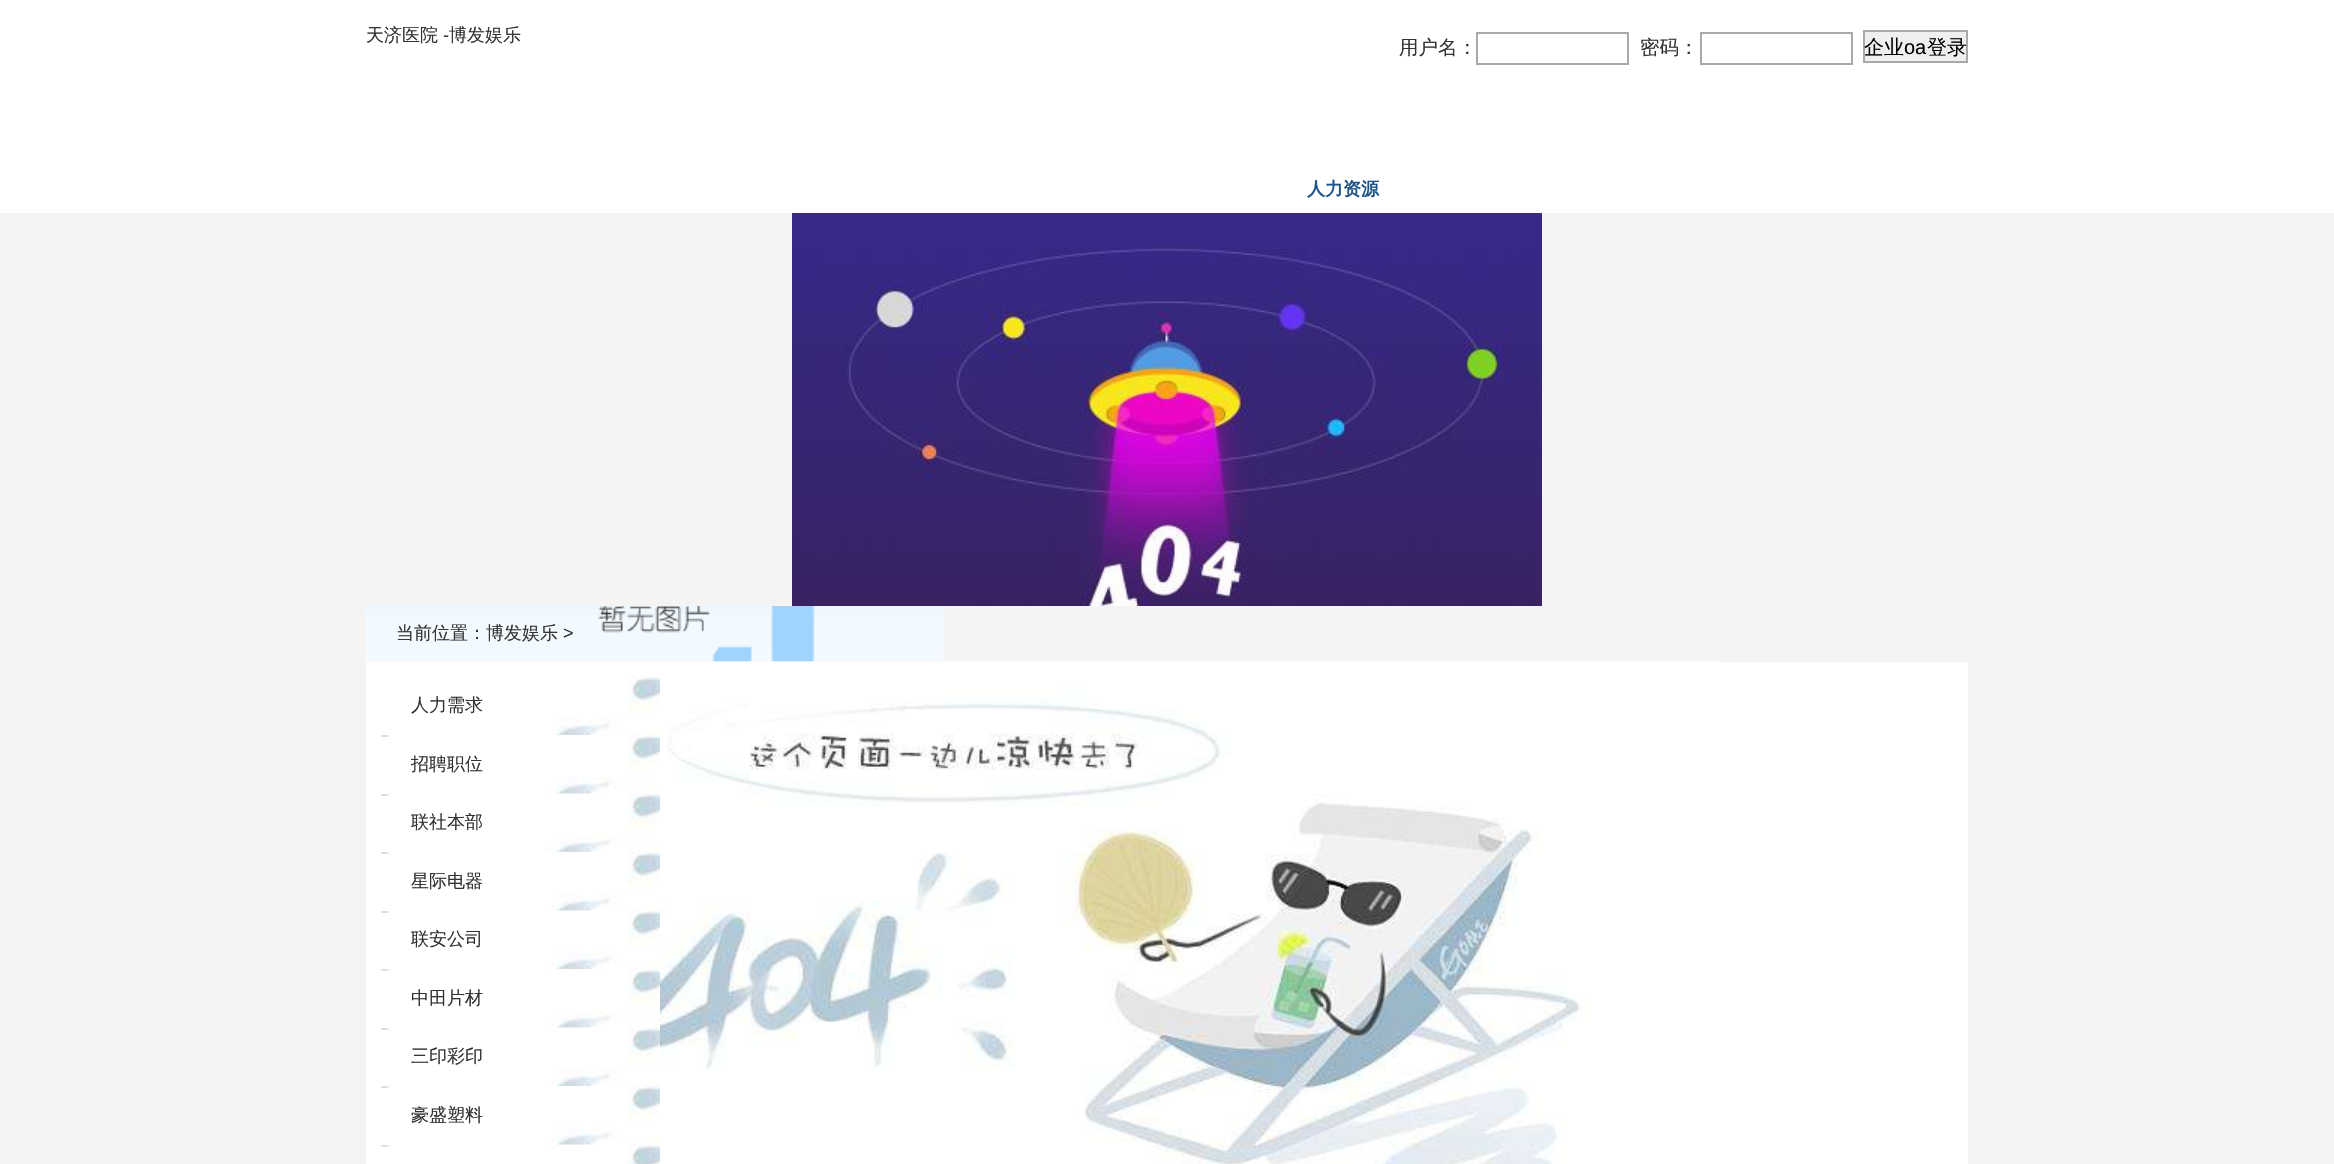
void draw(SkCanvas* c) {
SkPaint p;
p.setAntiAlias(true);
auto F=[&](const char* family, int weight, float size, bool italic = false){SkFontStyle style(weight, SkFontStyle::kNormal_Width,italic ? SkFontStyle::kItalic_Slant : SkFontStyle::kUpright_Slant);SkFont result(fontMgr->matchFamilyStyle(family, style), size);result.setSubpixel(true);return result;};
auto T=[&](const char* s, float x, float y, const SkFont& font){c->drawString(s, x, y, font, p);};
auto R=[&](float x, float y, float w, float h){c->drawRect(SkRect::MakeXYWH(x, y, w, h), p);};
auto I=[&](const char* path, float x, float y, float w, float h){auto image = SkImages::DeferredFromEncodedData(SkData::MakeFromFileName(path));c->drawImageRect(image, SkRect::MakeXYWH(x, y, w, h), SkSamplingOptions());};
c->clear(0xfff4f4f4);
p.setColor(0xffffffff);
R(0,0,2334,213);
auto f1 = F("WenQuanYi Zen Hei",500,18);
p.setColor(0xff333333);
T("天济医院",366,41,f1);
auto f2 = F("Liberation Sans",400,18);
T("-",443,41,f2);
T("博发娱乐",449,41,f1);
auto f3 = F("WenQuanYi Zen Hei",500,19.5);
T("用户名：",1399,54,f3);
p.setStroke(true);
p.setStrokeWidth(2);
p.setColor(0xffa9a9a9);
c->drawRect(SkRect::MakeXYWH(1477,33,151,31),p);
p.setStroke(false);
p.setColor(0xff333333);
T("密码：",1640,54,f3);
p.setStroke(true);
p.setColor(0xffa9a9a9);
c->drawRect(SkRect::MakeXYWH(1701,33,151,31),p);
p.setStroke(false);
p.setColor(0xffefefef);
c->drawRect(SkRect::MakeXYWH(1864,31,103,31),p);
p.setStroke(true);
p.setColor(0xffa9a9a9);
c->drawRect(SkRect::MakeXYWH(1864,31,103,31),p);
auto f4 = F("WenQuanYi Zen Hei",500,20);
p.setStroke(false);
p.setColor(0xff000000);
T("企业",1864,54,f4);
auto f5 = F("Liberation Sans",400,20);
T("oa",1904,54,f5);
T("登录",1927,54,f4);
auto f6 = F("WenQuanYi Zen Hei",700,18);
p.setColor(0xff1f5489);
T("人力资源",1307,195,f6);
I("1.png",792,213,750,393);
I("2.png",366,606,578,56);
p.setColor(0xff333333);
T("当前位置：博发娱乐",396,639,f1);
T(">",563,639,f2);
p.setColor(0xffffffff);
R(1716,662,252,502);
I("3.png",366,661,1350,503);
I("4.png",555,676,105,59);
p.setColor(0xffe0e0e0);
R(381,735,8,2);
p.setColor(0xff333333);
T("人力需求",411,711,f1);
I("5.png",388,735,272,59);
p.setColor(0xffe0e0e0);
R(381,794,8,2);
p.setColor(0xff333333);
T("招聘职位",411,770,f1);
I("6.png",388,793,272,59);
p.setColor(0xffe0e0e0);
R(381,852,8,2);
p.setColor(0xff333333);
T("联社本部",411,828,f1);
I("5.png",388,852,272,59);
p.setColor(0xffe0e0e0);
R(381,911,8,2);
p.setColor(0xff333333);
T("星际电器",411,887,f1);
I("6.png",388,910,272,59);
p.setColor(0xffe0e0e0);
R(381,969,8,2);
p.setColor(0xff333333);
T("联安公司",411,945,f1);
I("5.png",388,969,272,59);
p.setColor(0xffe0e0e0);
R(381,1028,8,2);
p.setColor(0xff333333);
T("中田片材",411,1004,f1);
I("6.png",388,1027,272,59);
p.setColor(0xffe0e0e0);
R(381,1086,8,2);
p.setColor(0xff333333);
T("三印彩印",411,1062,f1);
I("5.png",388,1086,272,59);
p.setColor(0xffe0e0e0);
R(381,1145,8,2);
p.setColor(0xff333333);
T("豪盛塑料",411,1121,f1);
I("7.png",388,1144,272,20);
}
